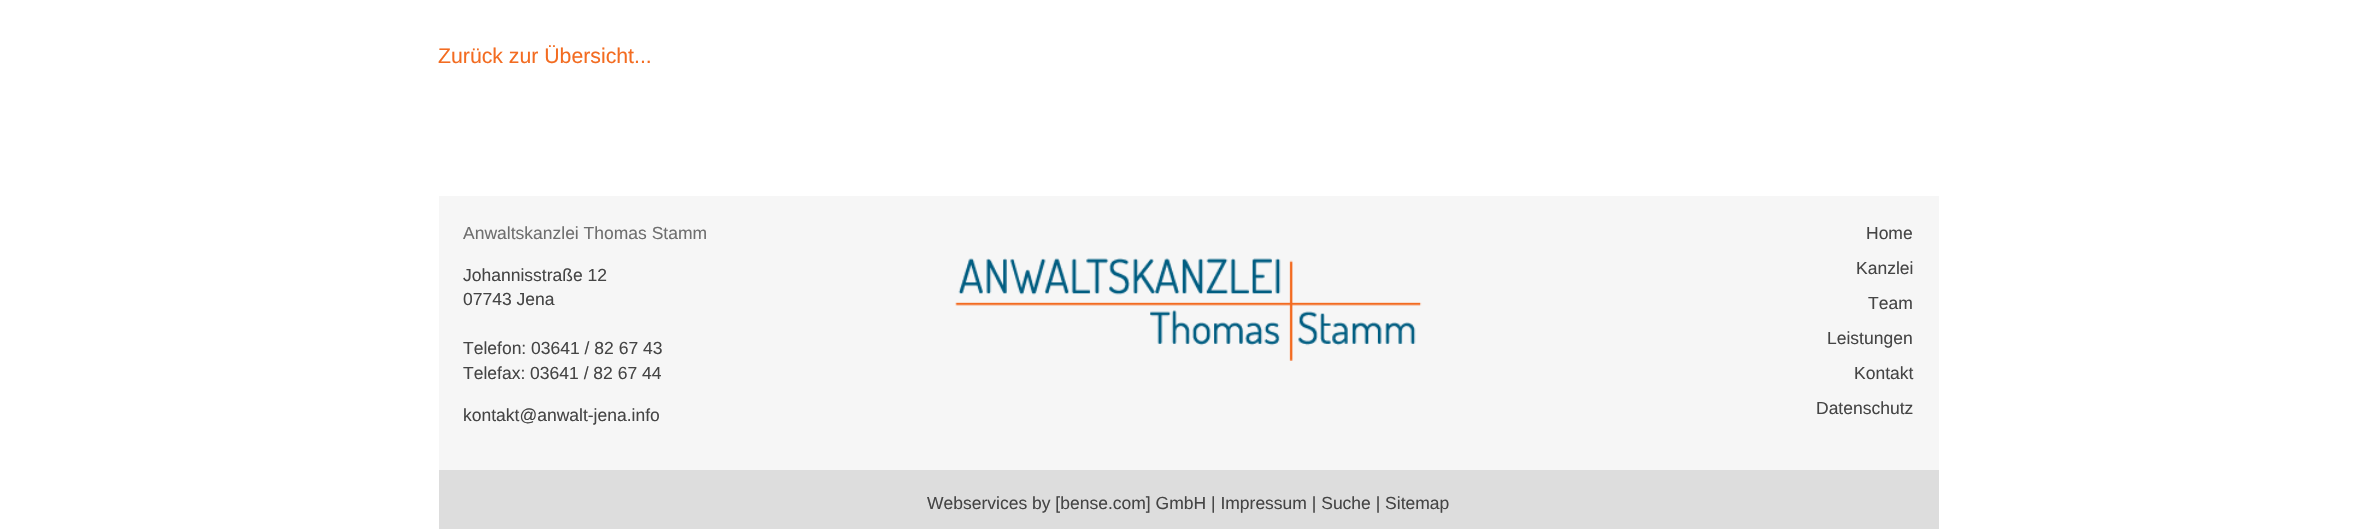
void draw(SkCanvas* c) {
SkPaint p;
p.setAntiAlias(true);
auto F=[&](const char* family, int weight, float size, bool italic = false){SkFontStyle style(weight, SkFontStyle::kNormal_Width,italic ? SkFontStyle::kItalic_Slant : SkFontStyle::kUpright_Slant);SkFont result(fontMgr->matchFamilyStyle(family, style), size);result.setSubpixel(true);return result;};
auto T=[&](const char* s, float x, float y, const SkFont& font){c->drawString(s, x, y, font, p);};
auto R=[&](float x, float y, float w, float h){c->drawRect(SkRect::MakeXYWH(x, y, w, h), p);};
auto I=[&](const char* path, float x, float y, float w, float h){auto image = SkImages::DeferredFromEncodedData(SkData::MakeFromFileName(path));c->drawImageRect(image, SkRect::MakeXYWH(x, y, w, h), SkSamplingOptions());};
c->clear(0xffffffff);
auto f1 = F("Liberation Sans",400,21.25);
p.setColor(0xfff36c21);
T("Zurück zur Übersicht...",438,63,f1);
p.setColor(0xfff6f6f6);
R(439,196,1500,274);
auto f2 = F("Liberation Sans",400,17.5);
p.setColor(0xff6f6f6f);
T("Anwaltskanzlei Thomas Stamm",463,239,f2);
p.setColor(0xff454545);
T("Johannisstraße 12",463,281,f2);
T("07743 Jena",463,305,f2);
T("Telefon: 03641 / 82 67 43",463,354,f2);
T("Telefax: 03641 / 82 67 44",463,379,f2);
T("kontakt@anwalt-jena.info",463,421,f2);
I("1.png",955,258,467,103);
T("Home",1866,239,f2);
T("Kanzlei",1856,274,f2);
T("Team",1868,309,f2);
T("Leistungen",1827,344,f2);
T("Kontakt",1854,379,f2);
T("Datenschutz",1816,414,f2);
p.setColor(0xffdddddd);
R(439,470,1500,59);
p.setColor(0xff454545);
T("Webservices by [bense.com] GmbH | Impressum | Suche | Sitemap",927,509,f2);
}
